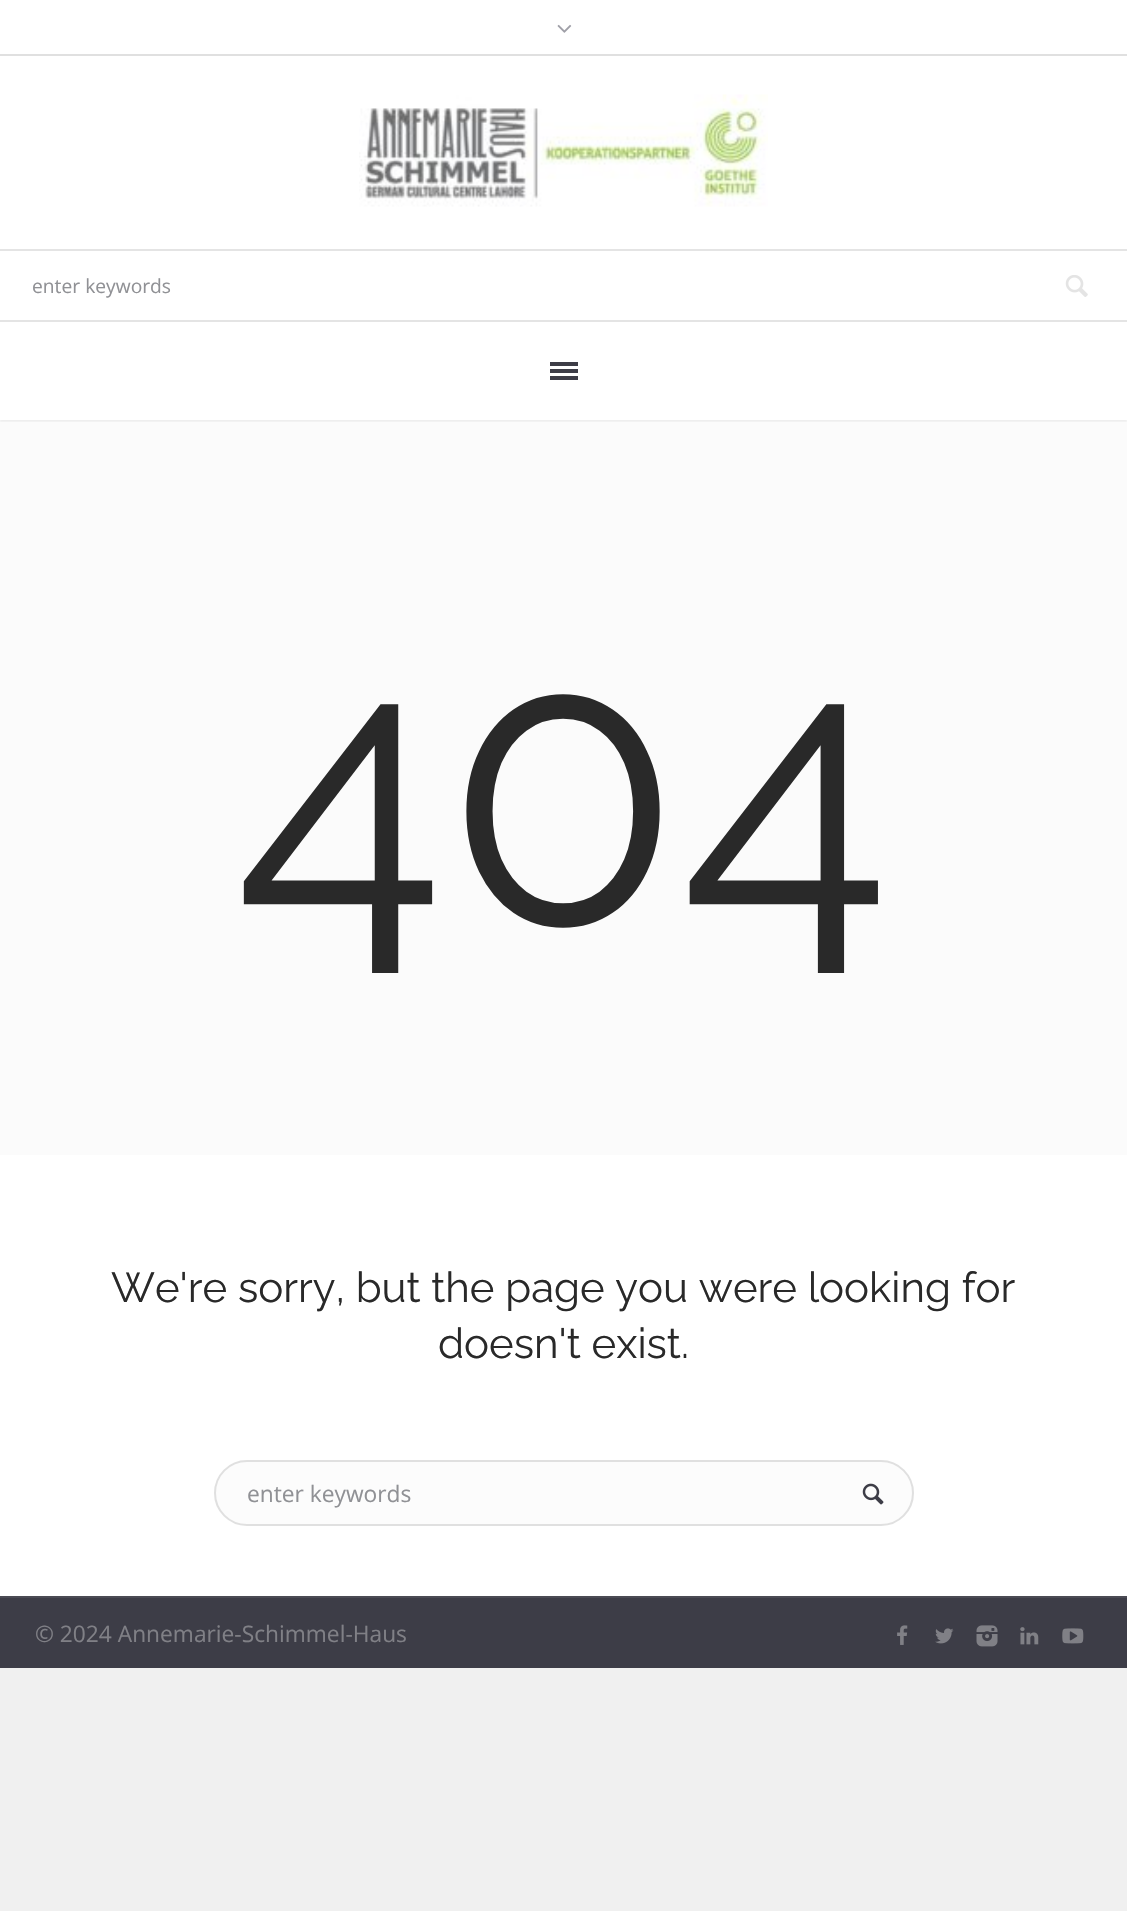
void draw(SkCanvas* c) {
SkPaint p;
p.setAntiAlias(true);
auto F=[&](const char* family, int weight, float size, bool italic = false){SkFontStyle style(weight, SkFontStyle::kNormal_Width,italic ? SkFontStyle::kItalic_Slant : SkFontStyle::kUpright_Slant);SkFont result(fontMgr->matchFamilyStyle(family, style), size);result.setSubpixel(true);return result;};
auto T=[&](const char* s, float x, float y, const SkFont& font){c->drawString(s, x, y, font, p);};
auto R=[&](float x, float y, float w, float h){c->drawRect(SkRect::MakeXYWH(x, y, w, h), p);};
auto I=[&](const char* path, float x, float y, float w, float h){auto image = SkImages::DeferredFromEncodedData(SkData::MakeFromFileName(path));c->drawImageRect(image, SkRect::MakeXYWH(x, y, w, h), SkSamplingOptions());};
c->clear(0xfff0f0f0);
p.setColor(0xffffffff);
R(0,0,1127,1596);
p.setColor(0xfffbfbfb);
R(0,420,1127,735);
c->save();
c->clipRect(SkRect::MakeXYWH(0,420,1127,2));
p.setColor(0x0d000000);
p.setMaskFilter(SkMaskFilter::MakeBlur(kNormal_SkBlurStyle, 1));
c->drawRect(SkRect::MakeXYWH(0,2,1127,420),p);
p.setMaskFilter(nullptr);
c->restore();
p.setColor(0xffe0e0e0);
R(0,54,1127,2);
I("1.png",557,24,15,9);
I("2.png",359,94,409,113);
p.setColor(0xffe4e4e4);
R(0,249,1127,2);
R(0,320,1127,2);
auto f1 = F("Open Sans",400,19.25);
p.setColor(0xff909195);
T("enter keywords",32,293,f1);
I("3.png",1065,275,23,22);
p.setColor(0xff3d3d47);
R(550,362,28,4);
R(550,376,28,4);
R(550,369,28,4);
auto f2 = F("Raleway",400,385);
p.setColor(0xff292929);
T("404",235,924,f2);
auto f3 = F("Raleway",400,42);
T("We're sorry, but the page you were looking for",111,1302,f3);
T("doesn't exist.",438,1358,f3);
p.setColor(0xfffcfcfc);
c->drawRoundRect(SkRect::MakeXYWH(215,1461,698,64),32,32,p);
p.setStroke(true);
p.setStrokeWidth(2);
p.setColor(0xffe0e0e0);
c->drawRoundRect(SkRect::MakeXYWH(215,1461,698,64),32,32,p);
auto f4 = F("Open Sans",400,22.75);
p.setStroke(false);
p.setColor(0xff909195);
T("enter keywords",247,1502,f4);
I("4.png",862,1483,22,22);
p.setColor(0xff3d3d47);
R(0,1598,1127,70);
p.setColor(0xff4b4b54);
R(0,1596,1127,2);
p.setColor(0xff808086);
T("© 2024 Annemarie-Schimmel-Haus",35,1642,f4);
I("5.png",897,1625,11,20);
I("6.png",935,1628,19,16);
I("7.png",976,1625,22,22);
I("8.png",1020,1627,19,18);
I("9.png",1062,1628,22,16);
}
